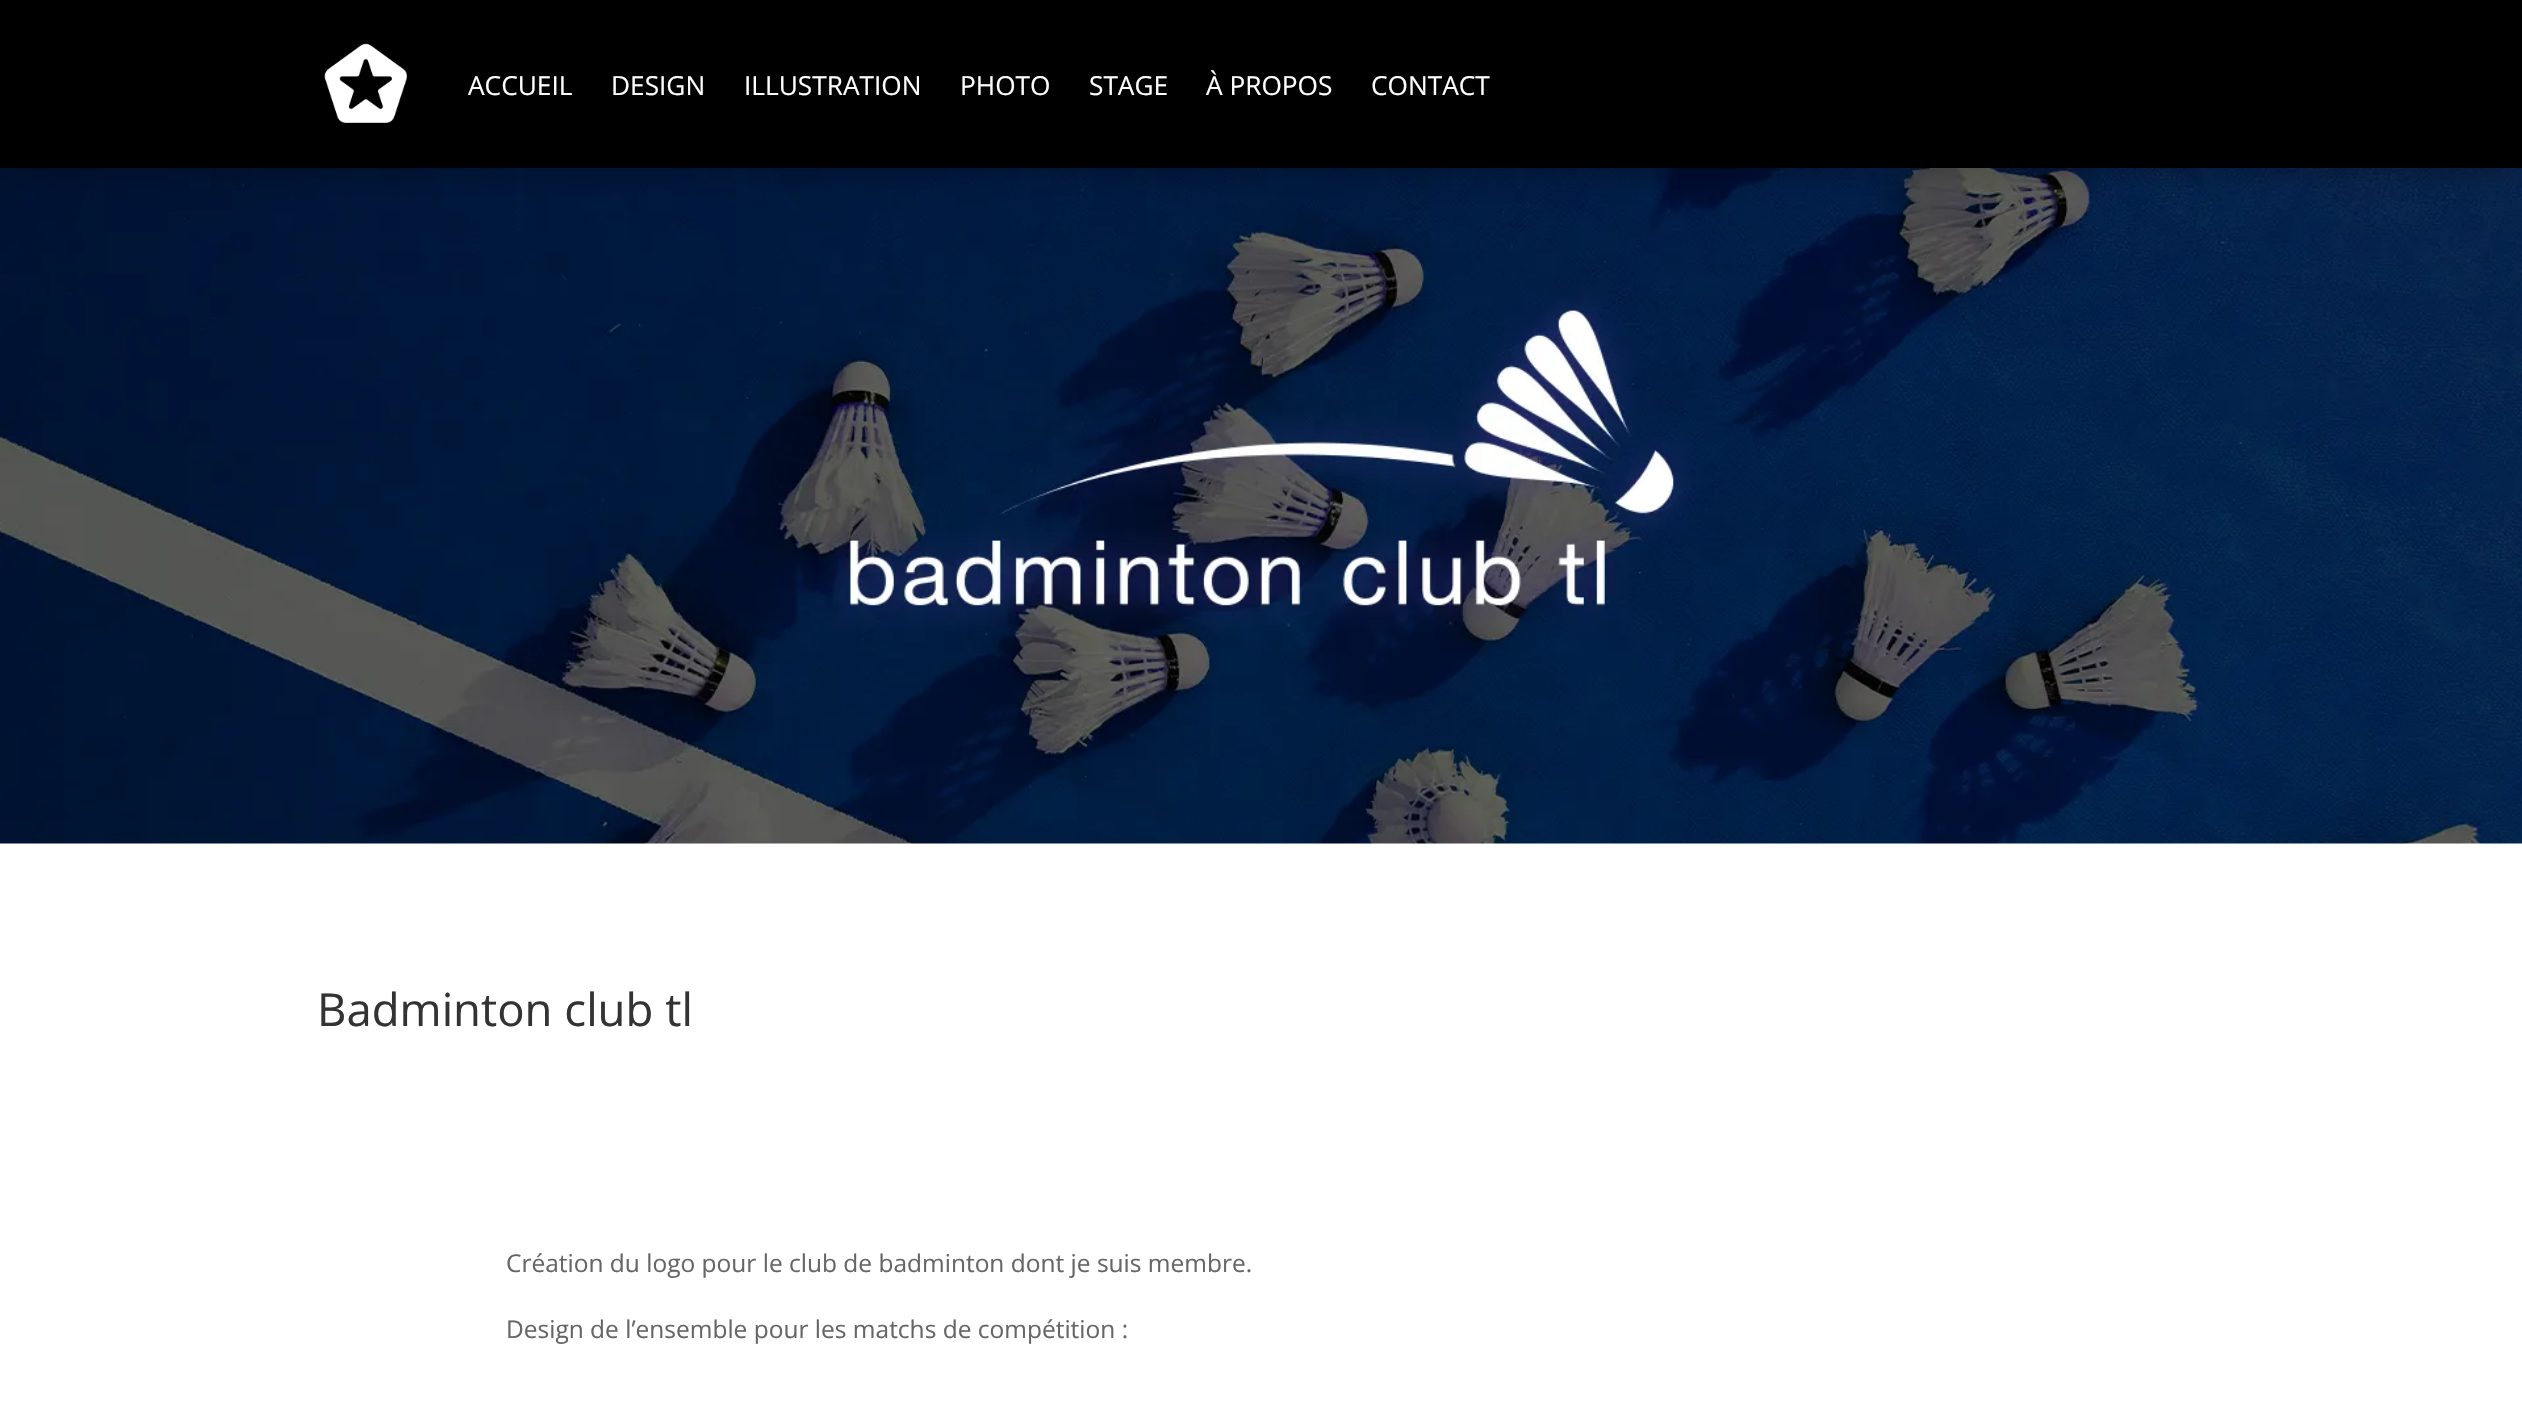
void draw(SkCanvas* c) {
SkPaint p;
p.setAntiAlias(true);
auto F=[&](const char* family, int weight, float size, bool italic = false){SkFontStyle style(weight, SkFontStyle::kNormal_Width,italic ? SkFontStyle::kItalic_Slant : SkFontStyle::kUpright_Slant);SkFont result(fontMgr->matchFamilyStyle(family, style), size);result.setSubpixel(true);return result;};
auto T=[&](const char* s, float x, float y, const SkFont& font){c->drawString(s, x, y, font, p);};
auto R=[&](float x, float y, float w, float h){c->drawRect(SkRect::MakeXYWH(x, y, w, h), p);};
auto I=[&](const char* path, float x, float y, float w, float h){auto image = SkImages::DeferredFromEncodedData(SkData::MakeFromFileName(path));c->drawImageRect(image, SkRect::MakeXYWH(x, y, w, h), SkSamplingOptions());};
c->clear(0xffffffff);
I("2.png",0,168,2522,676);
p.setColor(0x5c000000);
p.setMaskFilter(SkMaskFilter::MakeBlur(kNormal_SkBlurStyle, 16));
c->drawRect(SkRect::MakeXYWH(11,21,2502,147),p);
p.setMaskFilter(nullptr);
p.setColor(0xff000000);
R(0,0,2522,168);
I("1.png",324,43,83,80);
auto f1 = F("Open Sans",400,26.25);
p.setColor(0xffffffff);
T("ACCUEIL",468,95,f1);
T("DESIGN",611,95,f1);
T("ILLUSTRATION",744,95,f1);
T("PHOTO",960,95,f1);
T("STAGE",1089,95,f1);
T("À PROPOS",1206,95,f1);
T("CONTACT",1371,95,f1);
auto f2 = F("Open Sans",400,45.5);
p.setColor(0xff333333);
T("Badminton club tl",317,1026,f2);
auto f3 = F("Open Sans",400,24.5);
p.setColor(0xff666666);
T("Création du logo pour le club de badminton dont je suis membre.",506,1272,f3);
T("Design de l’ensemble pour les matchs de compétition :",506,1338,f3);
}
